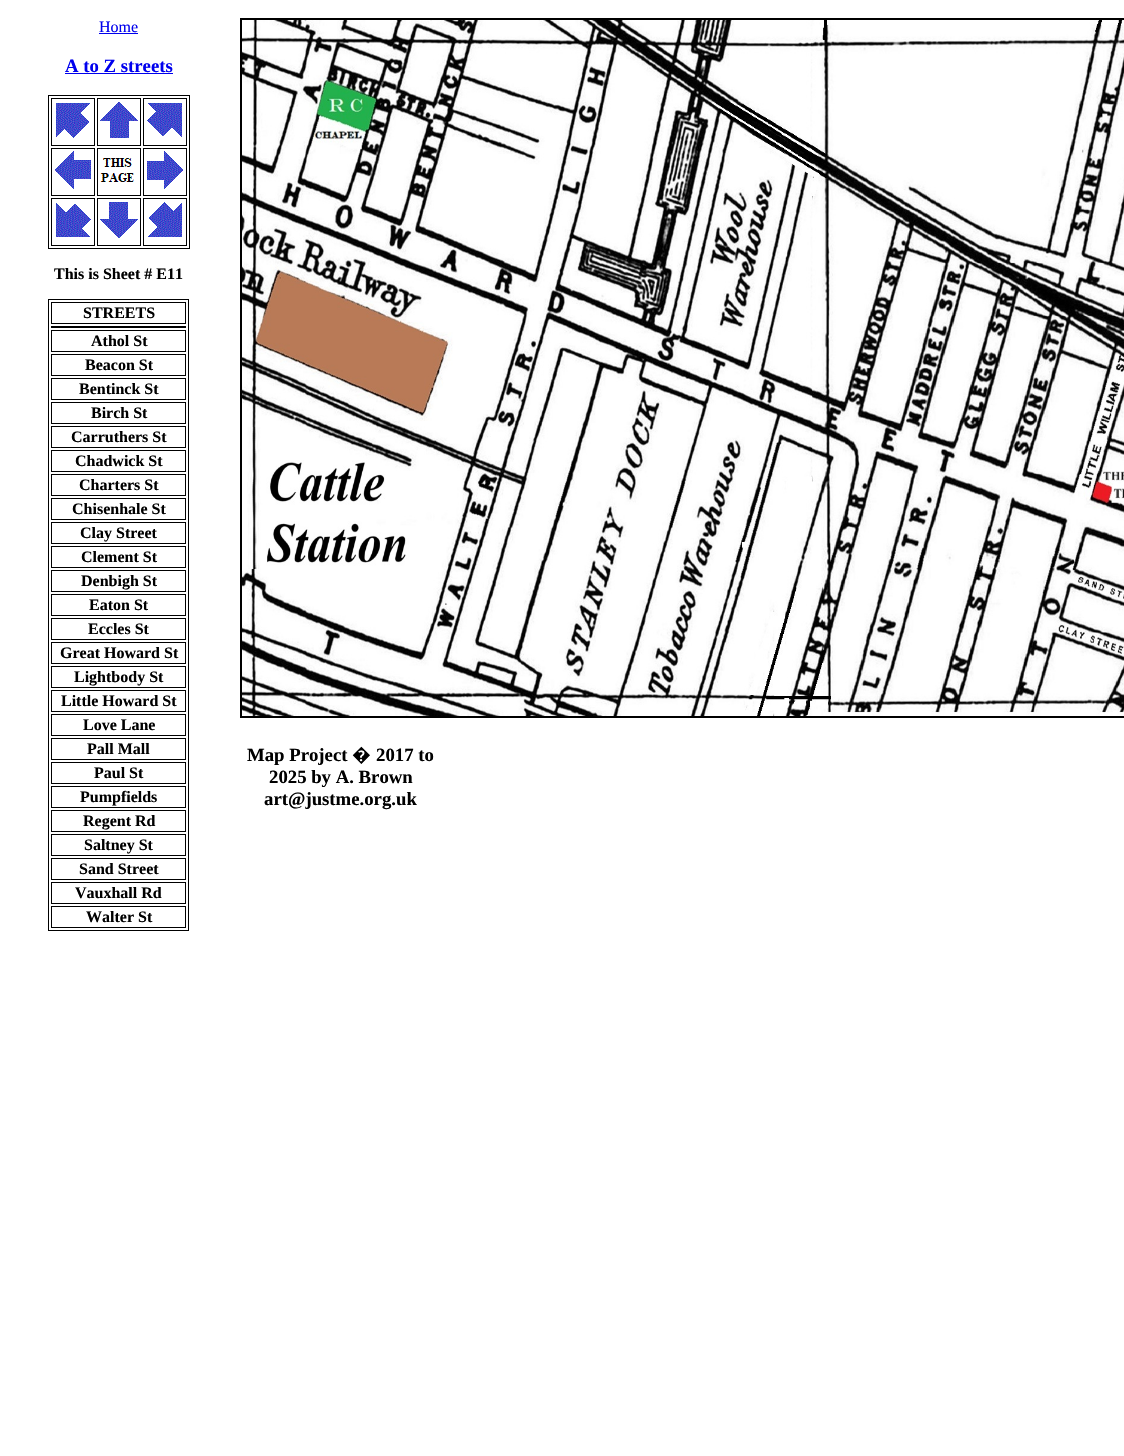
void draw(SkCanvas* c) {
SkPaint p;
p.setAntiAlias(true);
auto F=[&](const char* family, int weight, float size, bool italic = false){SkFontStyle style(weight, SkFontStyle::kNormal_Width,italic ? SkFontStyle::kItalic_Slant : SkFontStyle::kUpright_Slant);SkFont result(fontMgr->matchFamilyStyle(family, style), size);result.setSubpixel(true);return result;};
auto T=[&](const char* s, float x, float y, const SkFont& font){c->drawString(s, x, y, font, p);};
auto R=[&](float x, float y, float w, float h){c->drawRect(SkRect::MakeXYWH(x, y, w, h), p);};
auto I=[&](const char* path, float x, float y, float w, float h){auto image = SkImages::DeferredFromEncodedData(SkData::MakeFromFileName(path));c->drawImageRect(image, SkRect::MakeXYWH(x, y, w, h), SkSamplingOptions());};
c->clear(0xffffffff);
auto f1 = F("Liberation Serif",400,16);
p.setColor(0xff0000ee);
T("Home",99,32,f1);
R(99,33,39,1);
auto f2 = F("Liberation Serif",700,18.75);
T("A to Z streets",65,72,f2);
R(65,73,108,1);
p.setStroke(true);
p.setStrokeWidth(1);
p.setColor(0xff000000);
c->drawRect(SkRect::MakeXYWH(48.5,95.5,141,153),p);
c->drawRect(SkRect::MakeXYWH(51.5,98.5,43,47),p);
I("1.png",56,103,34,35);
c->drawRect(SkRect::MakeXYWH(97.5,98.5,43,47),p);
I("2.png",100,102,38,36);
c->drawRect(SkRect::MakeXYWH(143.5,98.5,43,47),p);
I("3.png",147,103,35,34);
c->drawRect(SkRect::MakeXYWH(51.5,148.5,43,47),p);
I("4.png",55,151,36,38);
c->drawRect(SkRect::MakeXYWH(97.5,148.5,43,47),p);
I("5.png",100,158,34,24);
c->drawRect(SkRect::MakeXYWH(143.5,148.5,43,47),p);
I("6.png",147,151,36,38);
c->drawRect(SkRect::MakeXYWH(51.5,198.5,43,47),p);
I("7.png",56,203,35,34);
c->drawRect(SkRect::MakeXYWH(97.5,198.5,43,47),p);
I("8.png",100,202,38,36);
c->drawRect(SkRect::MakeXYWH(143.5,198.5,43,47),p);
I("9.png",148,202,34,35);
auto f3 = F("Liberation Serif",700,16);
p.setStroke(false);
T("This is Sheet # E11",54,279,f3);
p.setStroke(true);
c->drawRect(SkRect::MakeXYWH(48.5,299.5,140,631),p);
c->drawRect(SkRect::MakeXYWH(51.5,302.5,134,21),p);
p.setStroke(false);
T("STREETS",83,318,f3);
R(51,326,135,2);
p.setStroke(true);
c->drawRect(SkRect::MakeXYWH(51.5,330.5,134,21),p);
p.setStroke(false);
T("Athol St",91,346,f3);
p.setStroke(true);
c->drawRect(SkRect::MakeXYWH(51.5,354.5,134,21),p);
p.setStroke(false);
T("Beacon St",85,370,f3);
p.setStroke(true);
c->drawRect(SkRect::MakeXYWH(51.5,378.5,134,21),p);
p.setStroke(false);
T("Bentinck St",79,394,f3);
p.setStroke(true);
c->drawRect(SkRect::MakeXYWH(51.5,402.5,134,21),p);
p.setStroke(false);
T("Birch St",91,418,f3);
p.setStroke(true);
c->drawRect(SkRect::MakeXYWH(51.5,426.5,134,21),p);
p.setStroke(false);
T("Carruthers St",71,442,f3);
p.setStroke(true);
c->drawRect(SkRect::MakeXYWH(51.5,450.5,134,21),p);
p.setStroke(false);
T("Chadwick St",75,466,f3);
p.setStroke(true);
c->drawRect(SkRect::MakeXYWH(51.5,474.5,134,21),p);
p.setStroke(false);
T("Charters St",79,490,f3);
p.setStroke(true);
c->drawRect(SkRect::MakeXYWH(51.5,498.5,134,21),p);
p.setStroke(false);
T("Chisenhale St",72,514,f3);
p.setStroke(true);
c->drawRect(SkRect::MakeXYWH(51.5,522.5,134,21),p);
p.setStroke(false);
T("Clay Street",80,538,f3);
p.setStroke(true);
c->drawRect(SkRect::MakeXYWH(51.5,546.5,134,21),p);
p.setStroke(false);
T("Clement St",81,562,f3);
p.setStroke(true);
c->drawRect(SkRect::MakeXYWH(51.5,570.5,134,21),p);
p.setStroke(false);
T("Denbigh St",81,586,f3);
p.setStroke(true);
c->drawRect(SkRect::MakeXYWH(51.5,594.5,134,21),p);
p.setStroke(false);
T("Eaton St",89,610,f3);
p.setStroke(true);
c->drawRect(SkRect::MakeXYWH(51.5,618.5,134,21),p);
p.setStroke(false);
T("Eccles St",88,634,f3);
p.setStroke(true);
c->drawRect(SkRect::MakeXYWH(51.5,642.5,134,21),p);
p.setStroke(false);
T("Great Howard St",60,658,f3);
p.setStroke(true);
c->drawRect(SkRect::MakeXYWH(51.5,666.5,134,21),p);
p.setStroke(false);
T("Lightbody St",74,682,f3);
p.setStroke(true);
c->drawRect(SkRect::MakeXYWH(51.5,690.5,134,21),p);
p.setStroke(false);
T("Little Howard St",61,706,f3);
p.setStroke(true);
c->drawRect(SkRect::MakeXYWH(51.5,714.5,134,21),p);
p.setStroke(false);
T("Love Lane",83,730,f3);
p.setStroke(true);
c->drawRect(SkRect::MakeXYWH(51.5,738.5,134,21),p);
p.setStroke(false);
T("Pall Mall",87,754,f3);
p.setStroke(true);
c->drawRect(SkRect::MakeXYWH(51.5,762.5,134,21),p);
p.setStroke(false);
T("Paul St",94,778,f3);
p.setStroke(true);
c->drawRect(SkRect::MakeXYWH(51.5,786.5,134,21),p);
p.setStroke(false);
T("Pumpfields",80,802,f3);
p.setStroke(true);
c->drawRect(SkRect::MakeXYWH(51.5,810.5,134,21),p);
p.setStroke(false);
T("Regent Rd",83,826,f3);
p.setStroke(true);
c->drawRect(SkRect::MakeXYWH(51.5,834.5,134,21),p);
p.setStroke(false);
T("Saltney St",84,850,f3);
p.setStroke(true);
c->drawRect(SkRect::MakeXYWH(51.5,858.5,134,21),p);
p.setStroke(false);
T("Sand Street",79,874,f3);
p.setStroke(true);
c->drawRect(SkRect::MakeXYWH(51.5,882.5,134,21),p);
p.setStroke(false);
T("Vauxhall Rd",75,898,f3);
p.setStroke(true);
c->drawRect(SkRect::MakeXYWH(51.5,906.5,134,21),p);
p.setStroke(false);
T("Walter St",86,922,f3);
p.setStroke(true);
p.setStrokeWidth(2);
c->drawRect(SkRect::MakeXYWH(241,19,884,698),p);
I("10.png",242,20,882,696);
p.setStroke(false);
T("Map Project",247,761,f2);
auto f4 = F("Noto Sans",700,18.75);
T("�",352,761,f4);
T("2017 to",376,761,f2);
T("2025 by A. Brown",269,783,f2);
T("art@justme.org.uk",264,805,f2);
}
